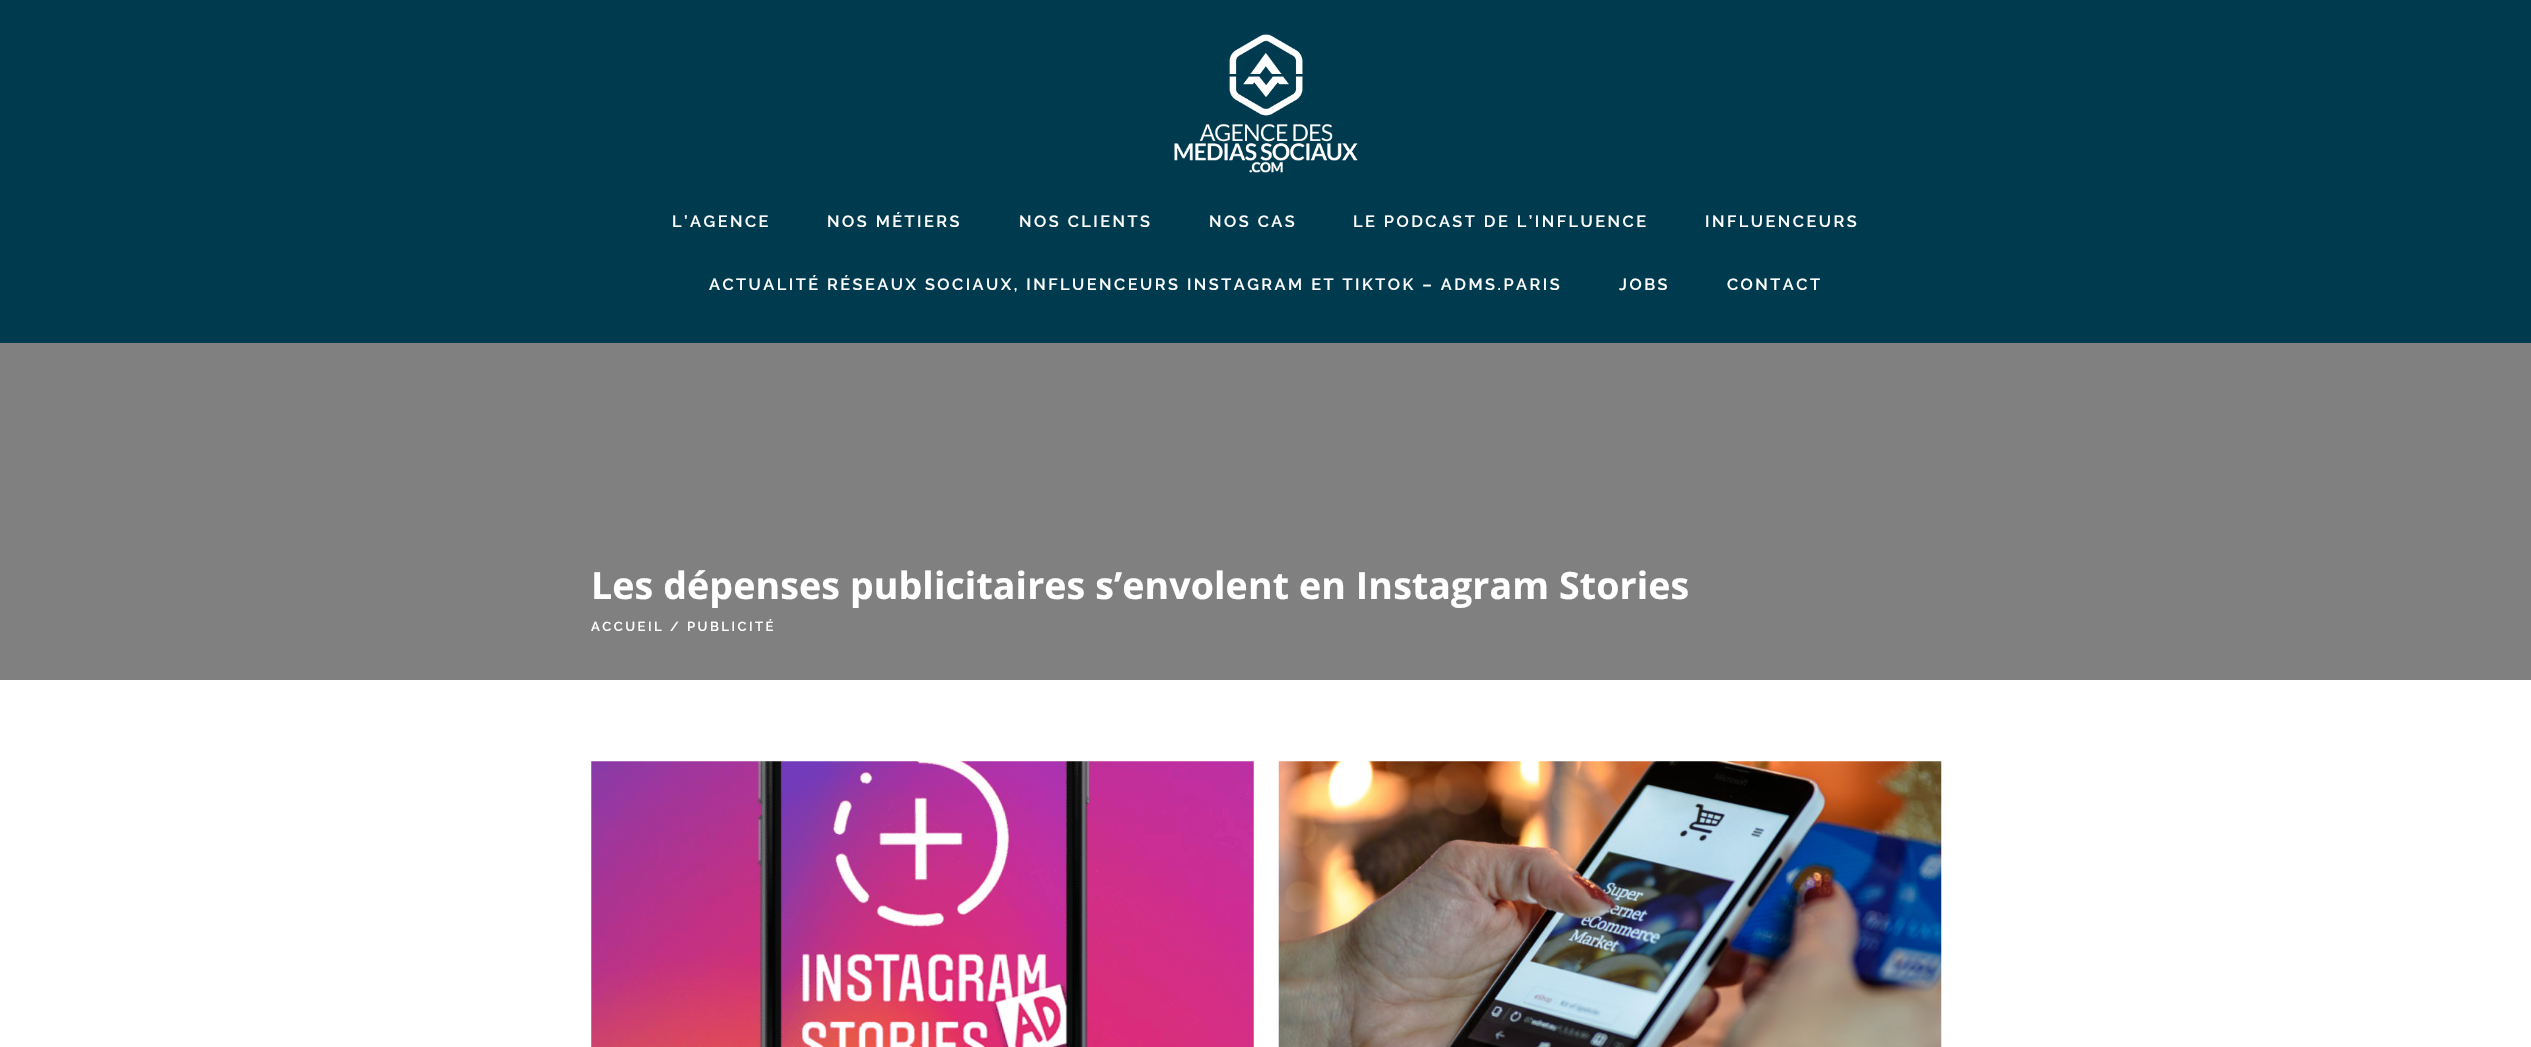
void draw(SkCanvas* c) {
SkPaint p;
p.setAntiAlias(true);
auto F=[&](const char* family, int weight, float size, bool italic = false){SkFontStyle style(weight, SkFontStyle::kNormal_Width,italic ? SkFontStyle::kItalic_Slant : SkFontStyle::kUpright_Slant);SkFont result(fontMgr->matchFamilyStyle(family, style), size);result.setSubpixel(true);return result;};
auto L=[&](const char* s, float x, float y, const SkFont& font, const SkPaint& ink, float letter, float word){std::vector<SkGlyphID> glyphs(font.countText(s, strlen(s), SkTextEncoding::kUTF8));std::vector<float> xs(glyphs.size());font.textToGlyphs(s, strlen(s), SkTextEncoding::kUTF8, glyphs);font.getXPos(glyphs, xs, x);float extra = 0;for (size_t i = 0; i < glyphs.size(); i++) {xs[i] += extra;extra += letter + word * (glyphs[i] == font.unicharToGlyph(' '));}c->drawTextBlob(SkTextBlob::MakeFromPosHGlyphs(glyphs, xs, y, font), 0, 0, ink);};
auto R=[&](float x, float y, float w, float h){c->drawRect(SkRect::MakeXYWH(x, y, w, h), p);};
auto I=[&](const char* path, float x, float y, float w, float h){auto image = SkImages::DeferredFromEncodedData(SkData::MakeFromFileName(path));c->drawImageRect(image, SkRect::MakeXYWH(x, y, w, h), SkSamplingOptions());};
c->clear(0xffffffff);
p.setColor(0xff003a4e);
R(0,0,2531,343);
I("1.png",1174,34,184,139);
auto f1 = F("Raleway",100,16.25);
p.setColor(0xffffffff);
L("L’AGENCE",672,227,f1,p,2.5,0);
L("NOS MÉTIERS",827,227,f1,p,2.5,0);
L("NOS CLIENTS",1019,227,f1,p,2.5,0);
L("NOS CAS",1209,227,f1,p,2.5,0);
L("LE PODCAST DE L’INFLUENCE",1353,227,f1,p,2.5,0);
L("INFLUENCEURS",1705,227,f1,p,2.5,0);
L("ACTUALITÉ RÉSEAUX SOCIAUX, INFLUENCEURS INSTAGRAM ET TIKTOK – ADMS.PARIS",709,290,f1,p,2.5,0);
L("JOBS",1619,290,f1,p,2.5,0);
L("CONTACT",1727,290,f1,p,2.5,0);
p.setColor(0xff808080);
R(0,343,2531,337);
auto f2 = F("Open Sans",700,37.5);
p.setColor(0xffffffff);
L("Les dépenses publicitaires s’envolent en Instagram Stories",591,599,f2,p,.12,0);
auto f3 = F("Raleway",100,13.1);
L("ACCUEIL / PUBLICITÉ",591,631,f3,p,2.5,0);
I("2.png",591,761,663,286);
I("3.png",1278,761,664,286);
}
